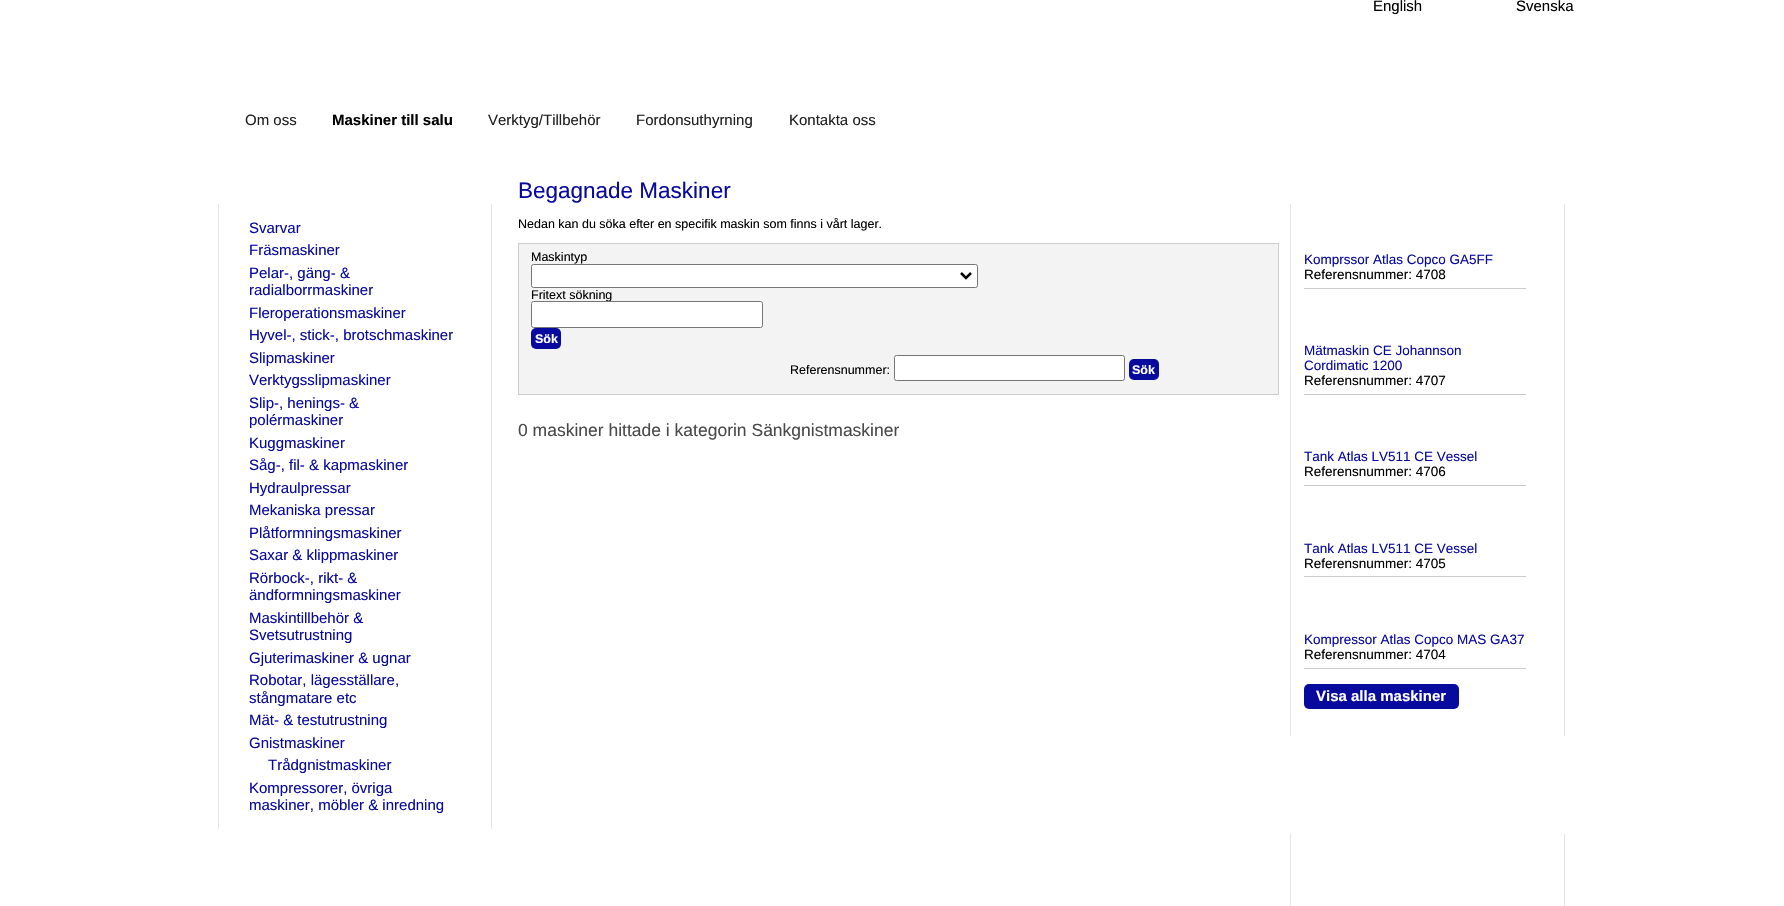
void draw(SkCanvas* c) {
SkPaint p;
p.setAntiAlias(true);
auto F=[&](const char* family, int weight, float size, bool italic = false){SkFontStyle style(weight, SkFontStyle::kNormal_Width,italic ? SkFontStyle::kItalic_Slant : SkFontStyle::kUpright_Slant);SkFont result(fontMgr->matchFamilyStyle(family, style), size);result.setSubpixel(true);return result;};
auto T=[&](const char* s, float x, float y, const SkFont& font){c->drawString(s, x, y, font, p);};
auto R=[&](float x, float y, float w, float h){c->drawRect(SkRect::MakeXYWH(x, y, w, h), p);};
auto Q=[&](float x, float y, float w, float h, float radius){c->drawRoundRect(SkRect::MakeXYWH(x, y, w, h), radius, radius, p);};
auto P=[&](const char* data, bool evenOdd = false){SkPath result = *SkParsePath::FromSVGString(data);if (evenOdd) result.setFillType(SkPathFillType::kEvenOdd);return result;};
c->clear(0xffffffff);
auto f1 = F("Liberation Sans",400,15);
p.setColor(0xff000000);
T("English",1373,11,f1);
T("Svenska",1516,11,f1);
p.setColor(0xff202020);
T("Om oss",245,125,f1);
auto f2 = F("Liberation Sans",700,15);
p.setColor(0xff000000);
T("Maskiner till salu",332,125,f2);
p.setColor(0xff202020);
T("Verktyg/Tillbehör",488,125,f1);
T("Fordonsuthyrning",636,125,f1);
T("Kontakta oss",789,125,f1);
p.setColor(0xffe5e5e5);
R(491,204,1,625);
R(218,204,1,625);
p.setColor(0xff080a9d);
T("Svarvar",249,233,f1);
T("Fräsmaskiner",249,255,f1);
T("Pelar-, gäng- &",249,278,f1);
T("radialborrmaskiner",249,295,f1);
T("Fleroperationsmaskiner",249,318,f1);
T("Hyvel-, stick-, brotschmaskiner",249,340,f1);
T("Slipmaskiner",249,363,f1);
T("Verktygsslipmaskiner",249,385,f1);
T("Slip-, henings- &",249,408,f1);
T("polérmaskiner",249,425,f1);
T("Kuggmaskiner",249,448,f1);
T("Såg-, fil- & kapmaskiner",249,470,f1);
T("Hydraulpressar",249,493,f1);
T("Mekaniska pressar",249,515,f1);
T("Plåtformningsmaskiner",249,538,f1);
T("Saxar & klippmaskiner",249,560,f1);
T("Rörbock-, rikt- &",249,583,f1);
T("ändformningsmaskiner",249,600,f1);
T("Maskintillbehör &",249,623,f1);
T("Svetsutrustning",249,640,f1);
T("Gjuterimaskiner & ugnar",249,663,f1);
T("Robotar, lägesställare,",249,685,f1);
T("stångmatare etc",249,703,f1);
T("Mät- & testutrustning",249,725,f1);
T("Gnistmaskiner",249,748,f1);
T("Trådgnistmaskiner",268,770,f1);
T("Kompressorer, övriga",249,793,f1);
T("maskiner, möbler & inredning",249,810,f1);
auto f3 = F("Liberation Sans",400,22.5);
T("Begagnade Maskiner",518,198,f3);
auto f4 = F("Liberation Sans",400,12.5);
p.setColor(0xff000000);
T("Nedan kan du söka efter en specifik maskin som finns i vårt lager.",518,228,f4);
p.setColor(0xfff3f3f3);
c->drawRect(SkRect::MakeXYWH(518.5,243.5,760,151),p);
p.setStroke(true);
p.setStrokeWidth(1);
p.setColor(0xffcccccc);
c->drawRect(SkRect::MakeXYWH(518.5,243.5,760,151),p);
p.setStroke(false);
p.setColor(0xff000000);
T("Maskintyp",531,261,f4);
p.setColor(0xffffffff);
c->drawRoundRect(SkRect::MakeXYWH(531.5,264.5,446,23),2,2,p);
p.setStroke(true);
p.setColor(0xff767676);
c->drawRoundRect(SkRect::MakeXYWH(531.5,264.5,446,23),2,2,p);
p.setStrokeWidth(2.5);
p.setColor(0xff000000);
c->drawPath(P("M961 273l5 5l5-5"),p);
p.setStroke(false);
T("Fritext sökning",531,299,f4);
p.setColor(0xffffffff);
c->drawRoundRect(SkRect::MakeXYWH(531.5,301.5,231,26),2,2,p);
p.setStroke(true);
p.setStrokeWidth(1);
p.setColor(0xff767676);
c->drawRoundRect(SkRect::MakeXYWH(531.5,301.5,231,26),2,2,p);
p.setStroke(false);
p.setColor(0xff080a9d);
Q(531,328,30,21,5);
auto f5 = F("Liberation Sans",700,12.5);
p.setColor(0xffffffff);
T("Sök",535,343,f5);
p.setColor(0xff000000);
T("Referensnummer:",790,374,f4);
p.setColor(0xffffffff);
c->drawRoundRect(SkRect::MakeXYWH(894.5,355.5,230,25),2,2,p);
p.setStroke(true);
p.setColor(0xff767676);
c->drawRoundRect(SkRect::MakeXYWH(894.5,355.5,230,25),2,2,p);
p.setStroke(false);
p.setColor(0xff080a9d);
Q(1129,359,30,21,5);
p.setColor(0xffffffff);
T("Sök",1132,374,f5);
auto f6 = F("Liberation Sans",400,17.5);
p.setColor(0xff494949);
T("0 maskiner hittade i kategorin Sänkgnistmaskiner",518,436,f6);
p.setColor(0xffe5e5e5);
R(1564,204,1,532);
R(1290,204,1,532);
p.setColor(0xffcccccc);
R(1304,288,222,1);
auto f7 = F("Liberation Sans",400,13.5);
p.setColor(0xff080a9d);
T("Komprssor Atlas Copco GA5FF",1304,264,f7);
p.setColor(0xff000000);
T("Referensnummer: 4708",1304,279,f7);
p.setColor(0xffcccccc);
R(1304,394,222,1);
p.setColor(0xff080a9d);
T("Mätmaskin CE Johannson",1304,355,f7);
T("Cordimatic 1200",1304,370,f7);
p.setColor(0xff000000);
T("Referensnummer: 4707",1304,385,f7);
p.setColor(0xffcccccc);
R(1304,485,222,1);
p.setColor(0xff080a9d);
T("Tank Atlas LV511 CE Vessel",1304,461,f7);
p.setColor(0xff000000);
T("Referensnummer: 4706",1304,476,f7);
p.setColor(0xffcccccc);
R(1304,576,222,1);
p.setColor(0xff080a9d);
T("Tank Atlas LV511 CE Vessel",1304,553,f7);
p.setColor(0xff000000);
T("Referensnummer: 4705",1304,568,f7);
p.setColor(0xffcccccc);
R(1304,668,222,1);
p.setColor(0xff080a9d);
T("Kompressor Atlas Copco MAS GA37",1304,644,f7);
p.setColor(0xff000000);
T("Referensnummer: 4704",1304,659,f7);
p.setColor(0xff080a9d);
Q(1304,684,155,25,5);
p.setColor(0xffffffff);
T("Visa alla maskiner",1316,701,f2);
p.setColor(0xffe5e5e5);
R(1564,834,1,72);
R(1290,834,1,72);
}
